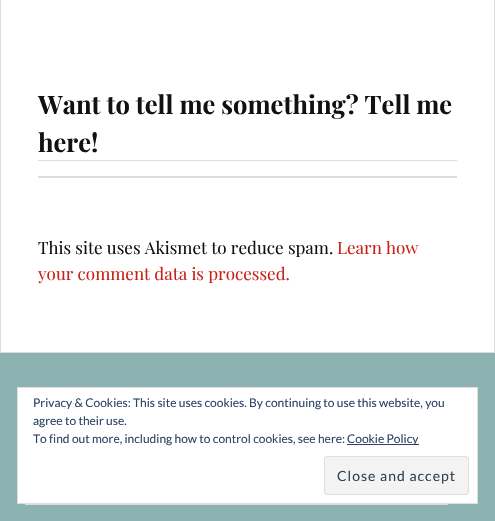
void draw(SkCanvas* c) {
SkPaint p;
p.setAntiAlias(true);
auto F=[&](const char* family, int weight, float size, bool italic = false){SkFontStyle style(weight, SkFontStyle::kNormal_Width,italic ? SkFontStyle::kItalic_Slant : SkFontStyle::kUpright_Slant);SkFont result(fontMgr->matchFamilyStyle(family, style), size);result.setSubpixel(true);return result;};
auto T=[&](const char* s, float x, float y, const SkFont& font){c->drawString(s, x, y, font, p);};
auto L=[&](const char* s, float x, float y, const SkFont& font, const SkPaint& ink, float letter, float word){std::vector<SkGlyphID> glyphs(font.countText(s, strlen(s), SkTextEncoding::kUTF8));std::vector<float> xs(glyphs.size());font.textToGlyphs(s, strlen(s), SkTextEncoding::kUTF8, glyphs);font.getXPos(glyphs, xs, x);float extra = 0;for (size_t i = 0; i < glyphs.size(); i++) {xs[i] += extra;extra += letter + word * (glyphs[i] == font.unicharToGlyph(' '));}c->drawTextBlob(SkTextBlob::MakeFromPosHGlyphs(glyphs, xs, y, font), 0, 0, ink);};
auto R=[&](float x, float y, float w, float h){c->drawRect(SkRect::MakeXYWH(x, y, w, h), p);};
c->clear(0xff8cb3b2);
p.setColor(0xffffffff);
R(1,0,493,352);
p.setColor(0xffdddddd);
R(494,0,1,353);
R(0,352,495,1);
R(0,0,1,353);
R(38,160,419,1);
auto f1 = F("Playfair Display",700,25.5);
p.setColor(0xff111111);
T("Want to tell me something? Tell me",38,114,f1);
T("here!",38,152,f1);
p.setColor(0xffdcdcde);
R(38,176,419,2);
auto f2 = F("Playfair Display",400,17);
p.setColor(0xff111111);
T("This site uses Akismet to reduce spam.",38,254,f2);
p.setColor(0xffca2017);
T("Learn how",337,254,f2);
T("your comment data is processed.",38,280,f2);
p.setStroke(true);
p.setStrokeWidth(1);
p.setColor(0xffdddddd);
c->drawRect(SkRect::MakeXYWH(25.5,478.5,422,26),p);
p.setStroke(false);
p.setColor(0xffffffff);
c->drawRect(SkRect::MakeXYWH(17.5,387.5,460,116),p);
p.setStroke(true);
p.setColor(0xffdedede);
c->drawRect(SkRect::MakeXYWH(17.5,387.5,460,116),p);
auto f3 = F("Lato",400,12);
p.setStroke(false);
p.setColor(0xff2e4467);
T("Privacy & Cookies: This site uses cookies. By continuing to use this website, you",33,407,f3);
T("agree to their use.",33,425,f3);
T("To find out more, including how to control cookies, see here:",33,443,f3);
R(347,444,72,1);
T("Cookie Policy",347,443,f3);
p.setColor(0xfff3f3f3);
c->drawRoundRect(SkRect::MakeXYWH(324.5,456.5,144,38),2.5,2.5,p);
p.setStroke(true);
p.setColor(0xffdedede);
c->drawRoundRect(SkRect::MakeXYWH(324.5,456.5,144,38),2.5,2.5,p);
auto f4 = F("Lato",400,14);
p.setStroke(false);
p.setColor(0xff2e4453);
L("Close and accept",337,481,f4,p,1,0);
}
